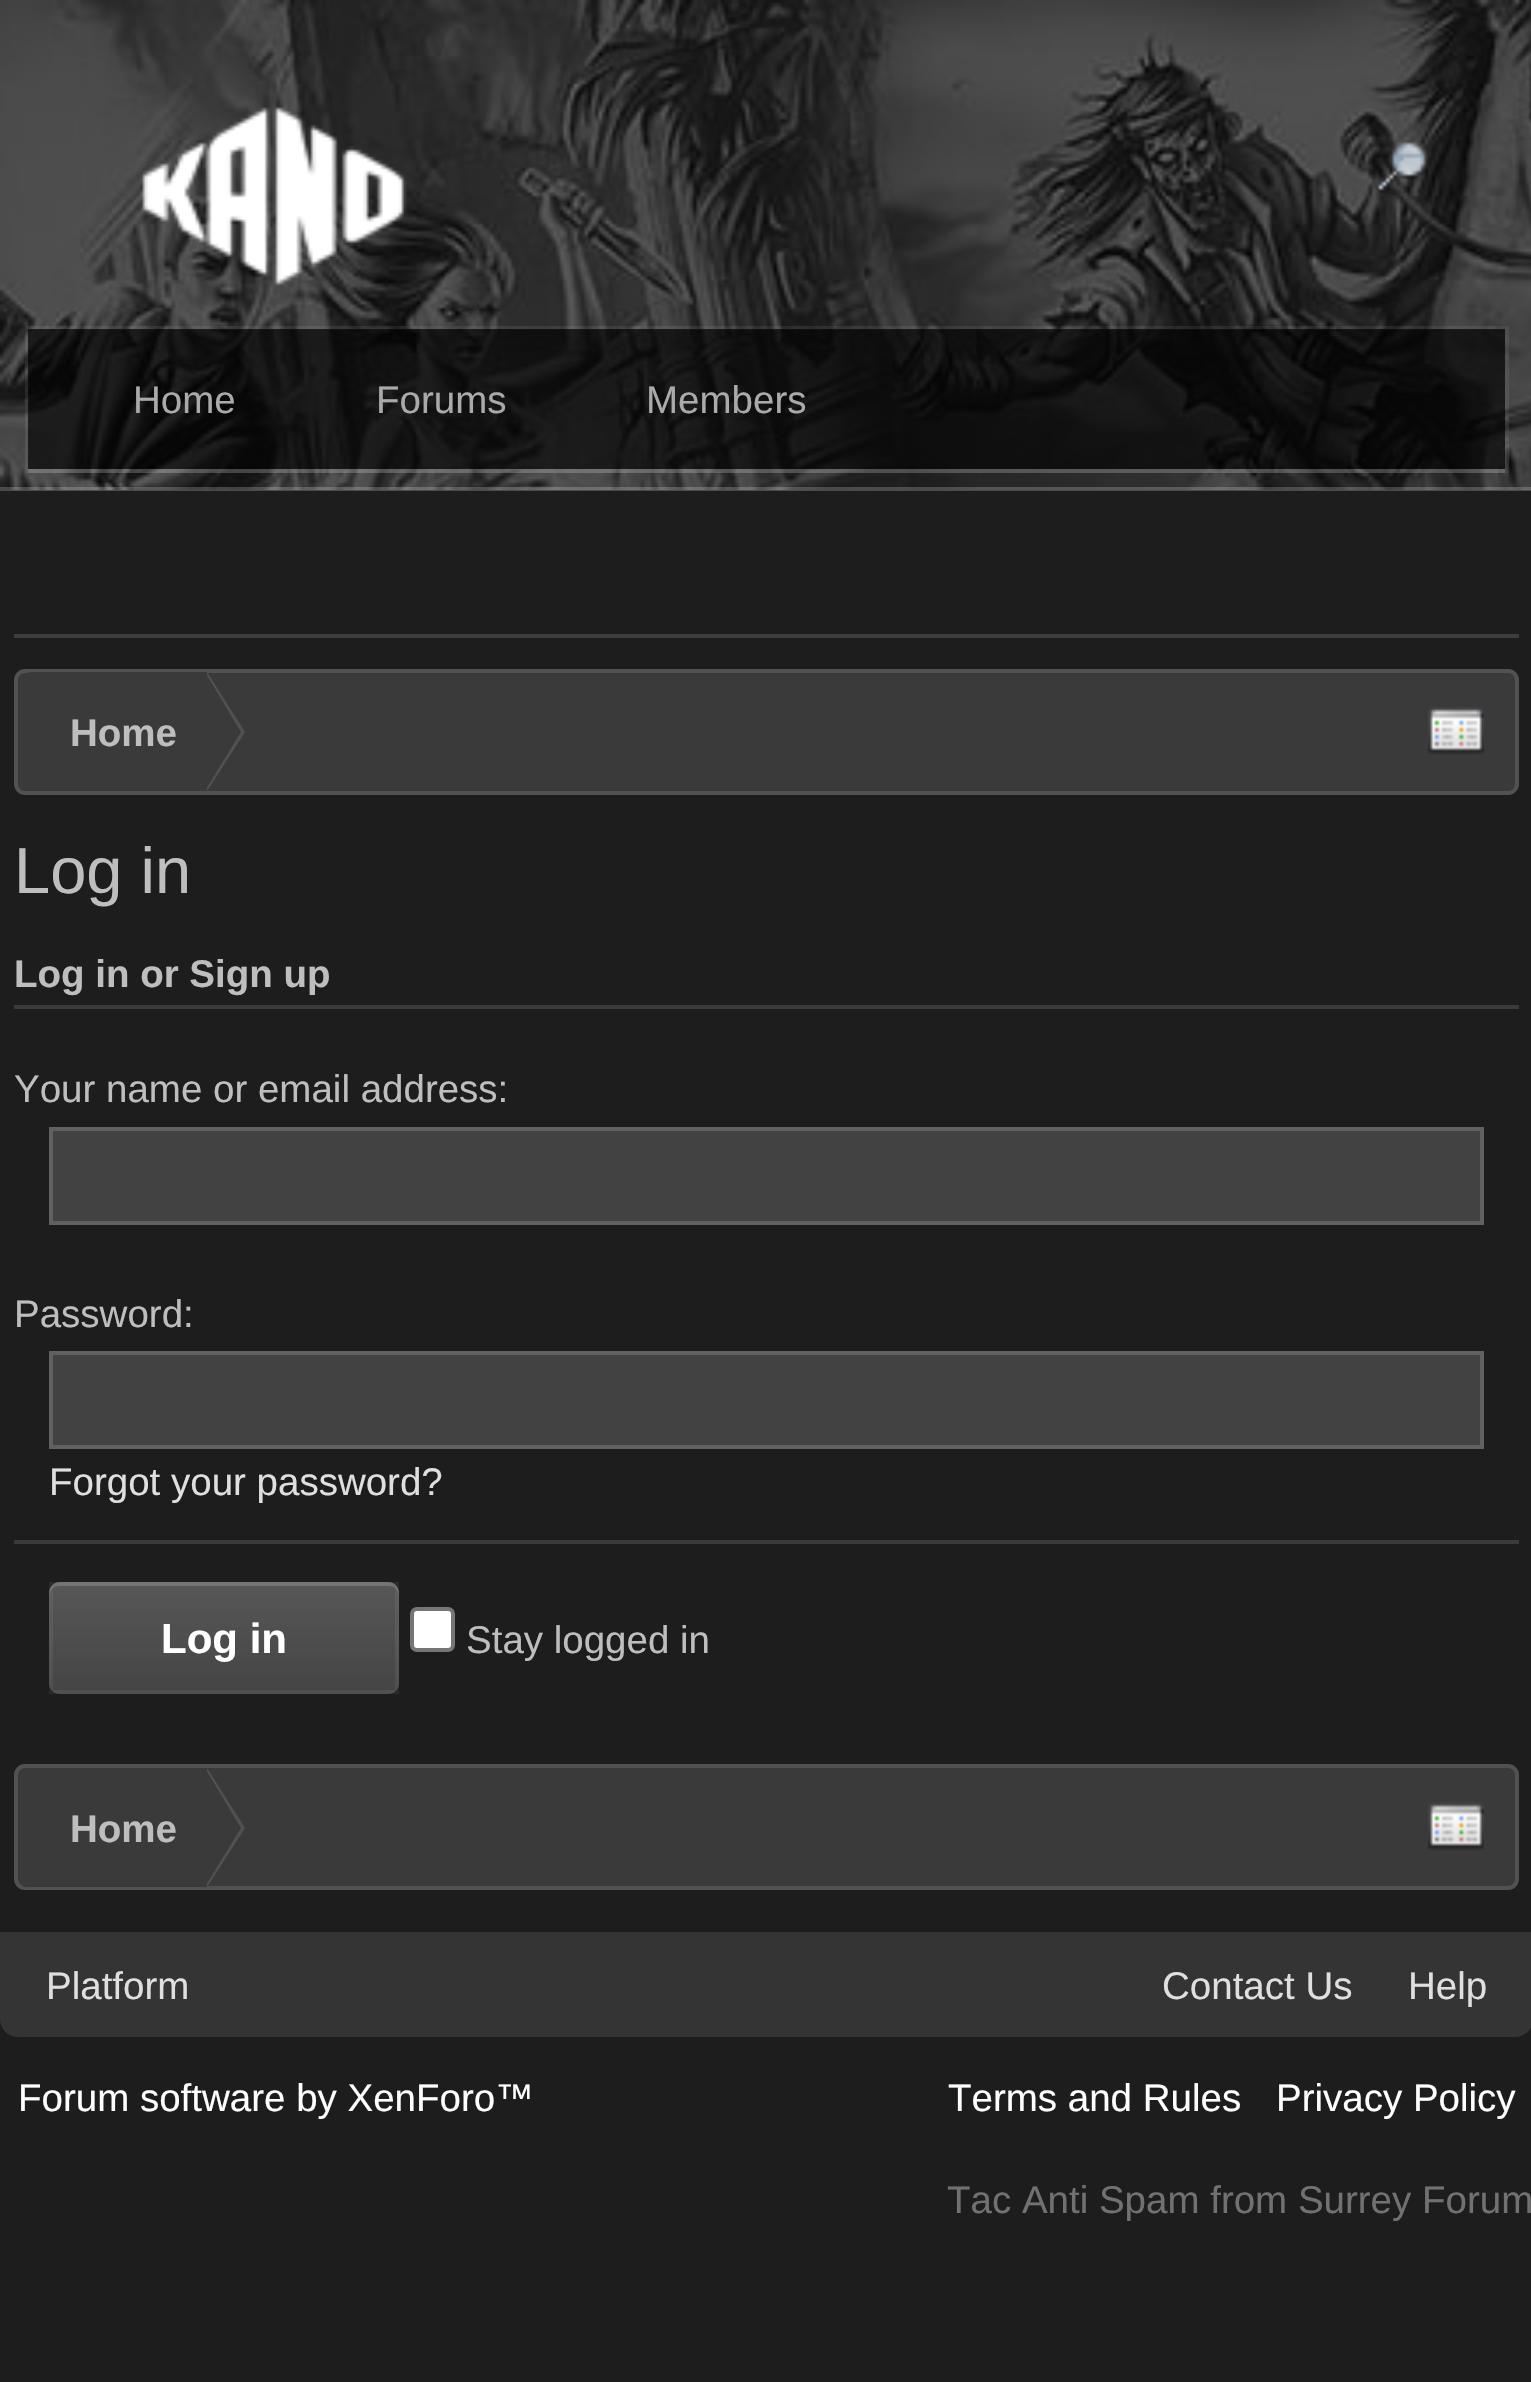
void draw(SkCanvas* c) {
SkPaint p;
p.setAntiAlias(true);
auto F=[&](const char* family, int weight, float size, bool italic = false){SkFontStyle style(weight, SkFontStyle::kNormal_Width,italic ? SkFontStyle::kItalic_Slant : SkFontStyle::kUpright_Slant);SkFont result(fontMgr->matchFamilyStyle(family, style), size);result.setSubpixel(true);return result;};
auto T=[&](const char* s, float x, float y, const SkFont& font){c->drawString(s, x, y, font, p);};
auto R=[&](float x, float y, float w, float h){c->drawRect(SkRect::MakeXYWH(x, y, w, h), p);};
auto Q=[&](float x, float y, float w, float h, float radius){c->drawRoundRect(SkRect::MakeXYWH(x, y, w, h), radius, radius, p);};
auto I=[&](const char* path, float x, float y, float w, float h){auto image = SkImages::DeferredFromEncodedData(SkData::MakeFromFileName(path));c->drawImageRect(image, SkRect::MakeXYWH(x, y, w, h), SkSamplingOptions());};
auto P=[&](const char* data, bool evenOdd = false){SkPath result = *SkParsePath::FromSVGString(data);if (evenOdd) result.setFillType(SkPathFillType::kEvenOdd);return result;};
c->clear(0xff1d1d1d);
I("1.png",0,0,1531,490);
p.setColor(0x33ffffff);
R(0,487,1531,4);
I("2.png",142,106,265,180);
I("3.png",1375,140,53,54);
p.setStroke(true);
p.setStrokeWidth(4);
p.setColor(0x12ffffff);
c->drawRect(SkRect::MakeXYWH(27,328,1480,143),p);
p.setStroke(false);
p.setColor(0x26ffffff);
R(28,469,1477,4);
p.setColor(0xa6000000);
R(28,329,1477,140);
{
const SkColor colors[] = {0x1a000000,0x00000000};
const float stops[] = {0,1};
const SkPoint ends[] = {{767,329}, {767,469}};
p.setShader(SkGradientShader::MakeLinear(ends, colors, stops, 2, SkTileMode::kClamp));
p.setAlpha(255);
}
R(28,329,1477,24);
auto f1 = F("Liberation Sans",400,38.5);
p.setShader(nullptr);
p.setColor(0xffaaaaaa);
T("Home",133,413,f1);
T("Forums",376,413,f1);
T("Members",646,413,f1);
p.setColor(0xff3e3e3e);
R(14,634,1505,4);
p.setColor(0xff3a3a3a);
c->drawRoundRect(SkRect::MakeXYWH(16,671,1501,122),9,9,p);
p.setStroke(true);
p.setColor(0xff515151);
c->drawRoundRect(SkRect::MakeXYWH(16,671,1501,122),9,9,p);
c->save();
c->clipPath(P("M25 672h1484c4 0 7 3 7 7v105c0 4-3 7-7 7h-1484c-4 0-7-3-7-7v-105c0-4 3-7 7-7z"),true);
p.setStroke(false);
p.setColor(0xff3a3a3a);
c->drawPath(P("M32 672h175v123h-175c-7.5 0-14-6.5-14-14v-95c0-7.5 6.5-14 14-14z"),p);
c->restore();
auto f2 = F("Liberation Sans",700,38.5);
p.setColor(0xffbebebe);
T("Home",70,746,f2);
p.setColor(0xff515151);
c->drawPath(P("M207 791v-119l38 60z"),p);
p.setColor(0xff3a3a3a);
c->drawPath(P("M205 672l36 60l-36 59h-2v-119z"),p);
I("4.png",1428,707,56,48);
auto f3 = F("Liberation Sans",400,65);
p.setColor(0xffbebebe);
T("Log in",14,893,f3);
p.setColor(0xff3a3a3a);
R(14,1005,1505,4);
p.setColor(0xffbebebe);
T("Log in or Sign up",14,987,f2);
T("Your name or email address:",14,1102,f1);
p.setColor(0xff424242);
c->drawRect(SkRect::MakeXYWH(51,1129,1431,94),p);
p.setStroke(true);
p.setColor(0xff616161);
c->drawRect(SkRect::MakeXYWH(51,1129,1431,94),p);
p.setStroke(false);
p.setColor(0xffbebebe);
T("Password:",14,1327,f1);
p.setColor(0xff424242);
c->drawRect(SkRect::MakeXYWH(51,1353,1431,94),p);
p.setStroke(true);
p.setColor(0xff616161);
c->drawRect(SkRect::MakeXYWH(51,1353,1431,94),p);
p.setStroke(false);
p.setColor(0xffdfdfdf);
T("Forgot your password?",49,1495,f1);
p.setColor(0xff3a3a3a);
R(14,1540,1505,4);
p.setColor(0xff444444);
Q(49,1582,350,112,11);
{
const SkColor colors[] = {0x1affffff,0x00ffffff};
const float stops[] = {0,1};
const SkPoint ends[] = {{224,1582}, {224,1694}};
p.setShader(SkGradientShader::MakeLinear(ends, colors, stops, 2, SkTileMode::kClamp));
p.setAlpha(255);
}
Q(49,1582,350,112,11);
p.setStroke(true);
p.setShader(nullptr);
p.setColor(0x0fffffff);
c->drawRect(SkRect::MakeXYWH(51,1584,346,108),p);
p.setStroke(false);
p.setColor(0x1fffffff);
c->drawPath(P("M60 1586h328c6 0 11 4 11 10v-3c0-6-5-11-11-11h-328c-6 0-11 5-11 11v3c0-6 5-10 11-10z"),p);
auto f4 = F("Liberation Sans",700,42);
p.setColor(0xffffffff);
T("Log in",161,1653,f4);
c->drawRoundRect(SkRect::MakeXYWH(412,1609,41,41),5,5,p);
p.setStroke(true);
p.setColor(0xff767676);
c->drawRoundRect(SkRect::MakeXYWH(412,1609,41,41),5,5,p);
p.setStroke(false);
p.setColor(0xffbebebe);
T("Stay logged in",466,1653,f1);
p.setColor(0xff3a3a3a);
c->drawRoundRect(SkRect::MakeXYWH(16,1766,1501,122),9,9,p);
p.setStroke(true);
p.setColor(0xff515151);
c->drawRoundRect(SkRect::MakeXYWH(16,1766,1501,122),9,9,p);
c->save();
c->clipPath(P("M25 1768h1484c4 0 7 3 7 7v105c0 4-3 7-7 7h-1484c-4 0-7-3-7-7v-105c0-4 3-7 7-7z"),true);
p.setStroke(false);
p.setColor(0xff3a3a3a);
c->drawPath(P("M32 1768h175v122h-175c-7.5 0-14-6.5-14-14v-94c0-7.5 6.5-14 14-14z"),p);
c->restore();
p.setColor(0xffbebebe);
T("Home",70,1842,f2);
p.setColor(0xff515151);
c->drawPath(P("M207 1887v-119l38 60z"),p);
p.setColor(0xff3a3a3a);
c->drawPath(P("M205 1768l36 60l-36 59h-2v-119z"),p);
I("5.png",1428,1802,56,49);
p.setColor(0xff343434);
c->drawPath(P("M0 1932h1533v87c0 10-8 18-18 18h-1497c-10 0-18-8-18-18z"),p);
p.setColor(0xffdfdfdf);
T("Platform",46,1999,f1);
T("Contact Us",1162,1999,f1);
T("Help",1408,1999,f1);
p.setColor(0xffffffff);
T("Forum software by XenForo™",18,2111,f1);
T("Terms and Rules",948,2111,f1);
T("Privacy Policy",1276,2111,f1);
p.setColor(0xff717171);
T("Tac Anti Spam from Surrey Forum",947,2213,f1);
}
